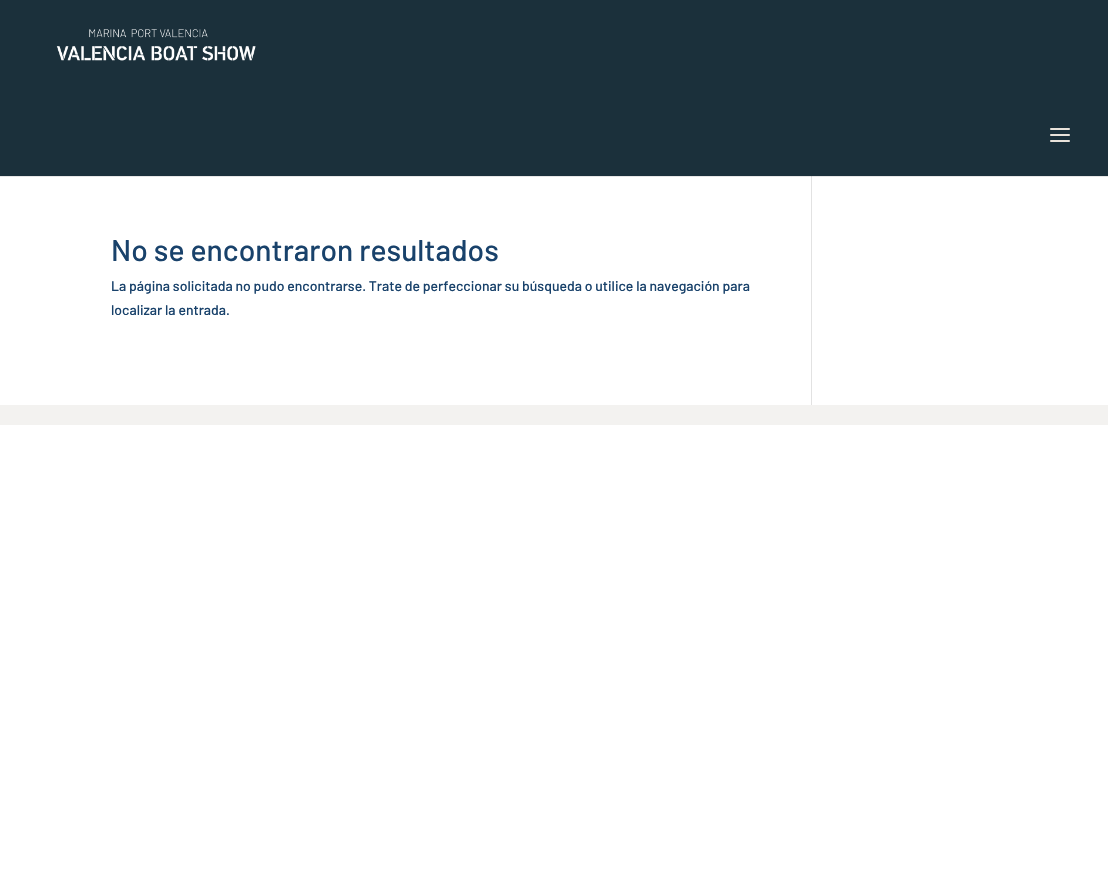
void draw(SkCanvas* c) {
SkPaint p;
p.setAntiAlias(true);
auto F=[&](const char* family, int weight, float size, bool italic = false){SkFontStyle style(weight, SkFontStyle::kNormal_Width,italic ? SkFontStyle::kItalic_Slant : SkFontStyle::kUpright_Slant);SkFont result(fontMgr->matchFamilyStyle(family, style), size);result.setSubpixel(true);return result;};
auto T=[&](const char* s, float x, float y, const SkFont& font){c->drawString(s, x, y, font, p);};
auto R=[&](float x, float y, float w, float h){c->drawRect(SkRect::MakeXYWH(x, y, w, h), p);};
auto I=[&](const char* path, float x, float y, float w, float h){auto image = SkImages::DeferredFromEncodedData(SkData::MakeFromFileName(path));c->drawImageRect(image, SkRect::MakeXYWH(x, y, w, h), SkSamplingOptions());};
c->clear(0xffffffff);
p.setColor(0xffe6e6e6);
R(0,176,1108,1);
p.setColor(0xff1b303b);
R(0,0,1108,176);
I("1.png",56,29,200,32);
I("2.png",1050,128,20,14);
auto f1 = F("Barlow",500,30);
p.setColor(0xff19426b);
T("No se encontraron resultados",111,261,f1);
auto f2 = F("Barlow",500,14);
T("La página solicitada no pudo encontrarse. Trate de perfeccionar su búsqueda o utilice la navegación para",111,291,f2);
T("localizar la entrada.",111,315,f2);
p.setColor(0xffe2e2e2);
R(811,176,1,229);
p.setColor(0xffcbcbcb);
R(811,176,1,1);
p.setColor(0xfff3f2f0);
R(0,405,1108,20);
}
